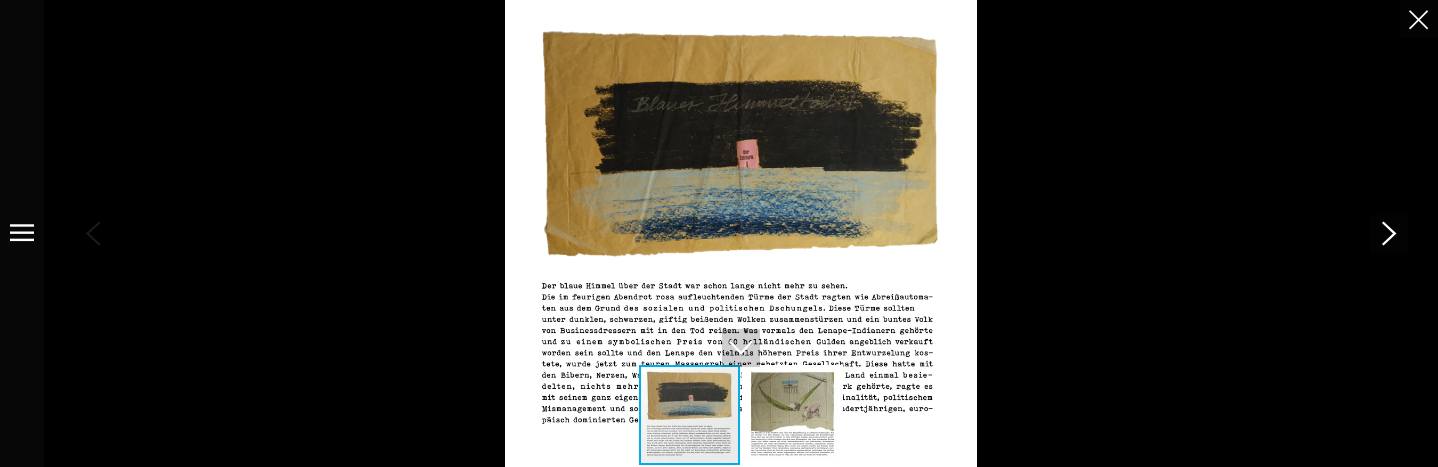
void draw(SkCanvas* c) {
SkPaint p;
p.setAntiAlias(true);
auto R=[&](float x, float y, float w, float h){c->drawRect(SkRect::MakeXYWH(x, y, w, h), p);};
auto I=[&](const char* path, float x, float y, float w, float h){auto image = SkImages::DeferredFromEncodedData(SkData::MakeFromFileName(path));c->drawImageRect(image, SkRect::MakeXYWH(x, y, w, h), SkSamplingOptions());};
auto P=[&](const char* data, bool evenOdd = false){SkPath result = *SkParsePath::FromSVGString(data);if (evenOdd) result.setFillType(SkPathFillType::kEvenOdd);return result;};
c->clear(0xff000000);
p.setColor(0xff070707);
R(0,0,44,467);
I("1.png",10,224,24,18);
p.setColor(0xff1a1a1a);
c->drawPath(P("M100.5 223l-11.5 10.5l11.5 10.5l-1.5 1.5l-13-12l13-12z"),p);
I("2.png",505,0,472,467);
p.setColor(0xff030303);
R(1370,215,38,38);
p.setColor(0xffffffff);
c->drawPath(P("M1382 223l1.5-1.5l13 12l-13 12l-1.5-1.5l11-10.5z"),p);
I("4.png",641,367,97,96);
p.setStroke(true);
p.setStrokeWidth(2);
p.setColor(0xff00afea);
c->drawRect(SkRect::MakeXYWH(640,366,99,98),p);
I("3.png",742,365,101,100);
p.setStroke(false);
p.setColor(0xff030303);
R(1400,0,38,38);
I("5.png",1409,10,20,20);
p.setColor(0x330d0d0d);
R(722,329,38,38);
p.setColor(0xffffffff);
c->drawPath(P("M751.5 340.5l1.5 1.5l-12 13l-12-13l1.5-1.5l10.5 11z"),p);
}
